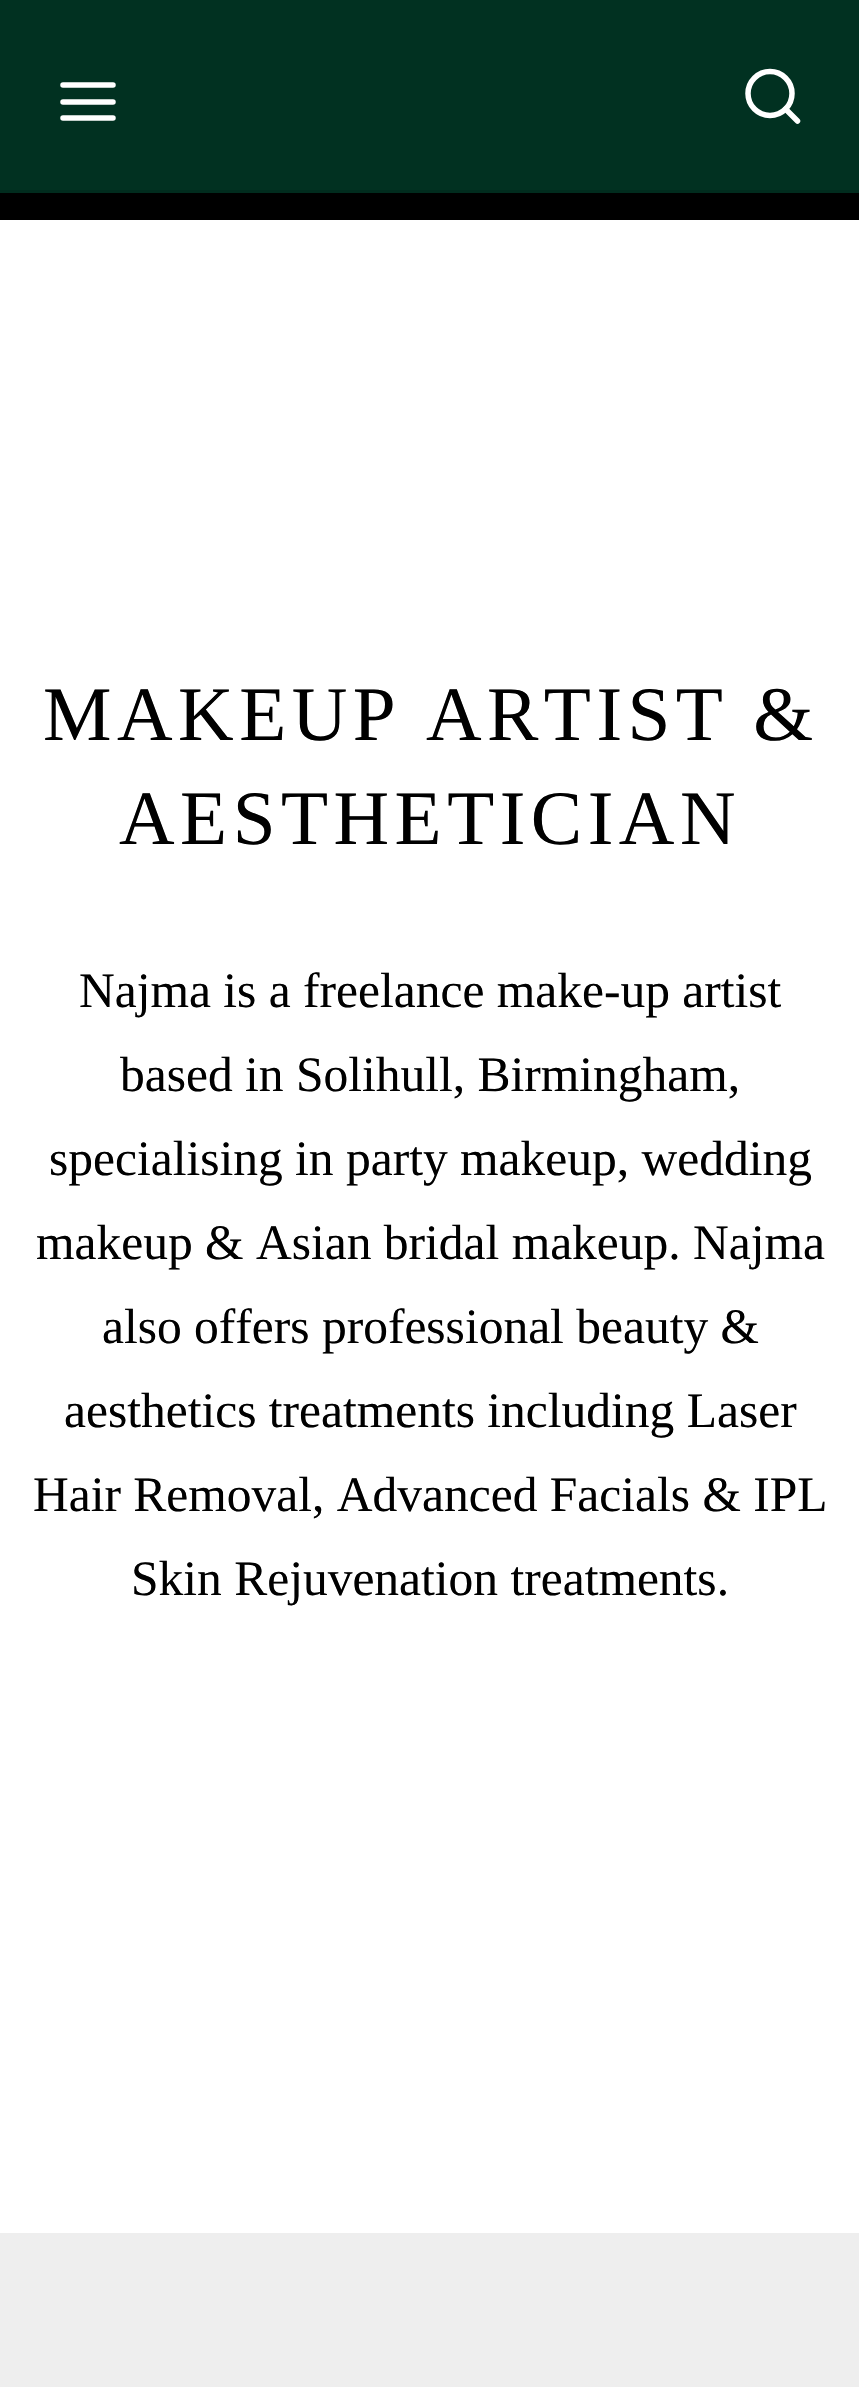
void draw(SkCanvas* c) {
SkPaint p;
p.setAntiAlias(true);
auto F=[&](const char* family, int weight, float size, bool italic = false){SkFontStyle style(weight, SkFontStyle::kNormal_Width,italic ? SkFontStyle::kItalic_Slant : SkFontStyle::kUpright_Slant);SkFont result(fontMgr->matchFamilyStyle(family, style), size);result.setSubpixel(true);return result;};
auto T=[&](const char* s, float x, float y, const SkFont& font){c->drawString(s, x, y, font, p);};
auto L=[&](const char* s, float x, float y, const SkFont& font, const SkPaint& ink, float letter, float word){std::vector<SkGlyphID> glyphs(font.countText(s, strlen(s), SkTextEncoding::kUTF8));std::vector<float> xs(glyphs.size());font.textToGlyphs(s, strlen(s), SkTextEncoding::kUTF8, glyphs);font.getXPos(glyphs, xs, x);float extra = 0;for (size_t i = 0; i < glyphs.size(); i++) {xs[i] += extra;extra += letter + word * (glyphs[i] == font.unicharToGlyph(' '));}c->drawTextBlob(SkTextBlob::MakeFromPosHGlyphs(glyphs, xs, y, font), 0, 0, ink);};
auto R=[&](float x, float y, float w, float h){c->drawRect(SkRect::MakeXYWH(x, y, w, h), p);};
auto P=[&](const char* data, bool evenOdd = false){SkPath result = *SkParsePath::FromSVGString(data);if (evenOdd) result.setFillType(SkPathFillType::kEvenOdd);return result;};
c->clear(0xffffffff);
p.setColor(0xff013121);
R(0,0,859,190);
p.setStroke(true);
p.setStrokeWidth(5.5);
p.setStrokeCap(SkPaint::kRound_Cap);
p.setStrokeJoin(SkPaint::kRound_Join);
p.setColor(0xffffffff);
c->drawPath(P("M63 102h50m-50-17h50m-50 33h50"),p);
p.setStrokeCap(SkPaint::kButt_Cap);
p.setStrokeJoin(SkPaint::kMiter_Join);
c->drawCircle(770,93.5,22,p);
p.setStrokeCap(SkPaint::kRound_Cap);
p.setStrokeJoin(SkPaint::kRound_Join);
c->drawPath(P("M797.5 121l-12-12"),p);
p.setStroke(false);
p.setColor(0xff012c1e);
R(0,190,859,3);
p.setColor(0xff000000);
R(0,193,859,27);
auto f1 = F("Liberation Serif",400,77);
L("MAKEUP ARTIST &",43,740,f1,p,5.5,0);
L("AESTHETICIAN",119,844,f1,p,5.5,0);
auto f2 = F("Liberation Serif",400,49.5);
T("Najma is a freelance make-up artist",79,1007,f2);
T("based in Solihull, Birmingham,",120,1091,f2);
T("specialising in party makeup, wedding",49,1175,f2);
T("makeup & Asian bridal makeup. Najma",36,1259,f2);
T("also offers professional beauty &",102,1343,f2);
T("aesthetics treatments including Laser",64,1427,f2);
T("Hair Removal, Advanced Facials & IPL",33,1511,f2);
T("Skin Rejuvenation treatments.",131,1595,f2);
p.setColor(0xffeeeeee);
R(0,2233,859,154);
}
